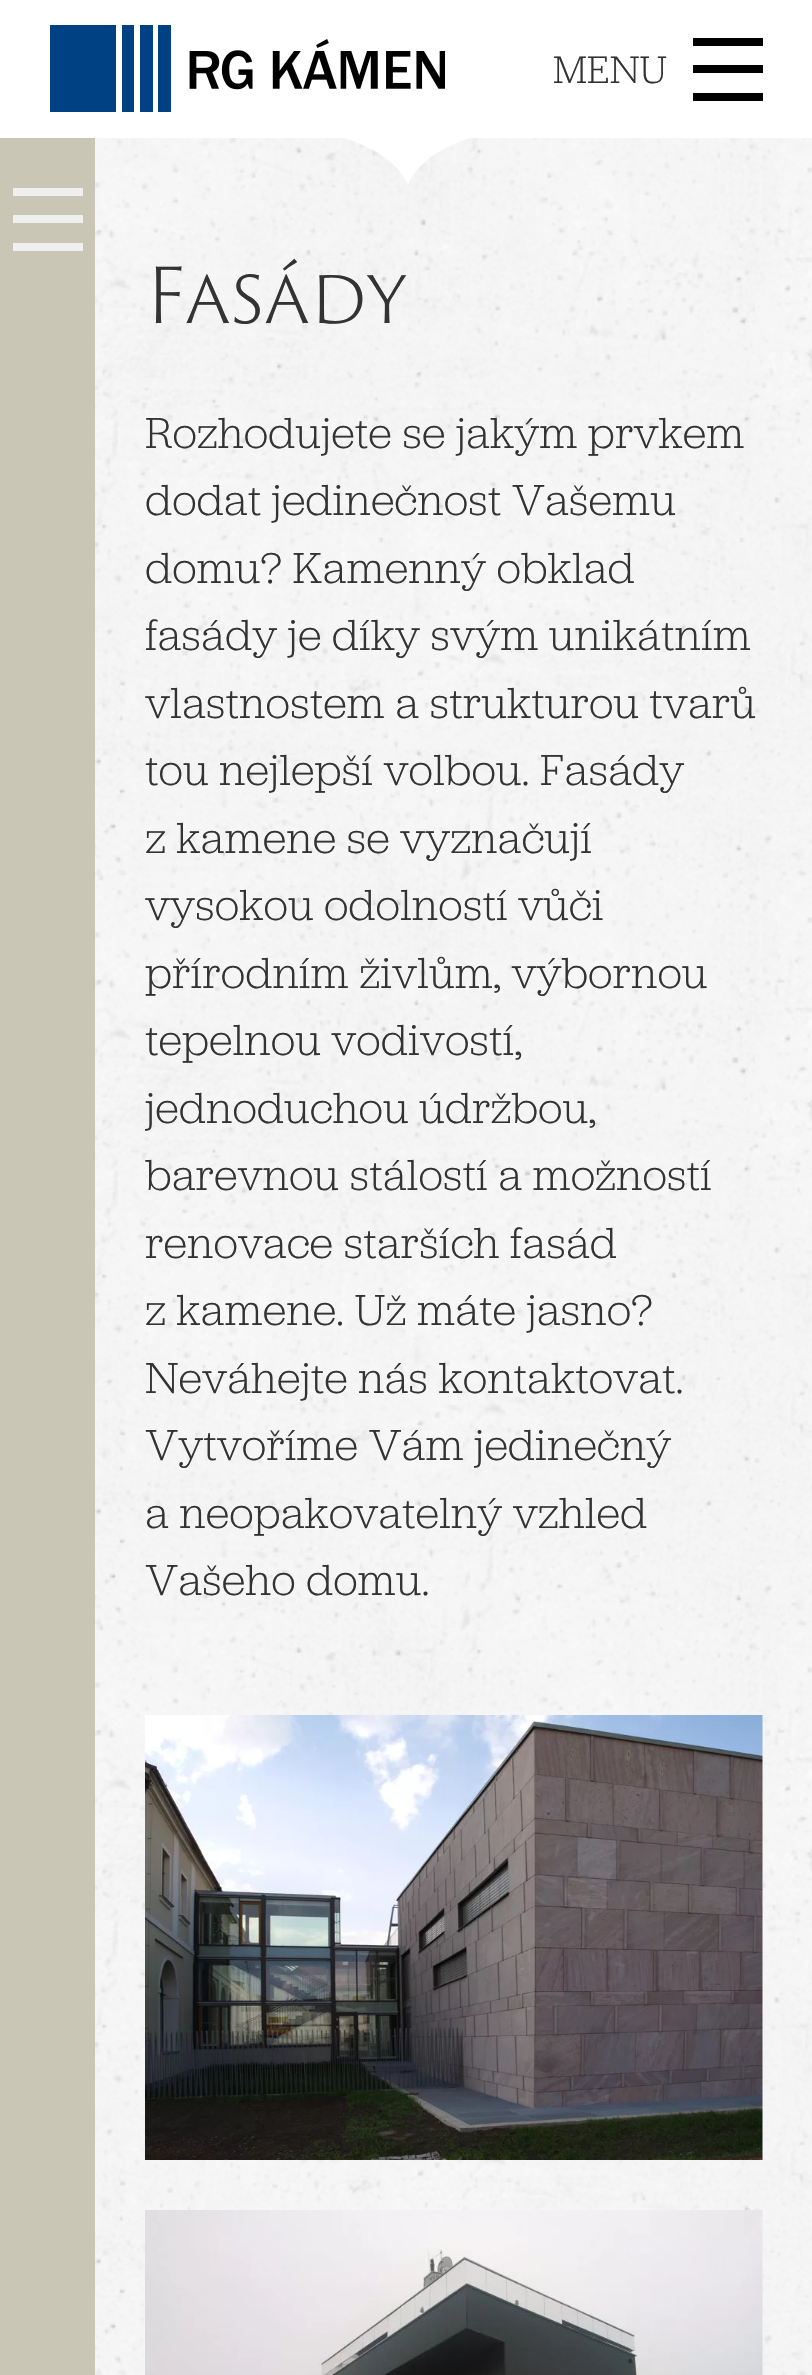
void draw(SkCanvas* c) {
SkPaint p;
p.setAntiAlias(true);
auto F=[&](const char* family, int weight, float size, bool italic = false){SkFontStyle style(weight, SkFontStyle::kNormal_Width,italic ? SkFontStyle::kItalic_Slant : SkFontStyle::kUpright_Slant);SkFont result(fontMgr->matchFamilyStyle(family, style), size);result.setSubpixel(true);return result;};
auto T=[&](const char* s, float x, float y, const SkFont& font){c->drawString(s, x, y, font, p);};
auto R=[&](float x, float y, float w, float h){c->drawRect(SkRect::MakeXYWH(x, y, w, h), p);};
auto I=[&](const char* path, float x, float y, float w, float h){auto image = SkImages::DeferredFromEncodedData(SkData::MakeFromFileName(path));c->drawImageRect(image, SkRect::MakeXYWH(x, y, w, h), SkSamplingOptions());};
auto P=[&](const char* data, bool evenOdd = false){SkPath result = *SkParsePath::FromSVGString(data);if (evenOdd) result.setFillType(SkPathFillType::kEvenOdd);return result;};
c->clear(0xffffffff);
I("1.png",95,138,717,2237);
I("2.png",50,25,395,87);
auto f1 = F("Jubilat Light",300,40);
p.setColor(0xff333333);
T("MENU",553,83,f1);
p.setColor(0xff000000);
R(693,38,70,8);
R(693,65,70,8);
R(693,93,70,8);
p.setColor(0xffffffff);
c->drawPath(P("M470 138c-24 8-52 22-62 47c-11-25-39-39-63-47z",true),p);
p.setColor(0xffcac6b6);
R(0,138,95,2237);
p.setColor(0xffefefef);
R(13,188,70,8);
R(13,215,70,8);
R(13,243,70,8);
auto f2 = F("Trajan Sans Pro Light",300,75);
p.setColor(0xff333333);
T("Fasády",145,323,f2);
auto f3 = F("Jubilat Light",300,45);
T("Rozhodujete se jakým prvkem",145,448,f3);
T("dodat jedinečnost Vašemu",145,515,f3);
T("domu? Kamenný obklad",145,583,f3);
T("fasády je díky svým unikátním",145,650,f3);
T("vlastnostem a strukturou tvarů",145,718,f3);
T("tou nejlepší volbou. Fasády",145,785,f3);
T("z kamene se vyznačují",145,853,f3);
T("vysokou odolností vůči",145,920,f3);
T("přírodním živlům, výbornou",145,988,f3);
T("tepelnou vodivostí,",145,1055,f3);
T("jednoduchou údržbou,",145,1123,f3);
T("barevnou stálostí a možností",145,1190,f3);
T("renovace starších fasád",145,1258,f3);
T("z kamene. Už máte jasno?",145,1325,f3);
T("Neváhejte nás kontaktovat.",145,1393,f3);
T("Vytvoříme Vám jedinečný",145,1460,f3);
T("a neopakovatelný vzhled",145,1528,f3);
T("Vašeho domu.",145,1595,f3);
I("3.png",145,1715,618,445);
I("4.png",145,2210,618,165);
}
